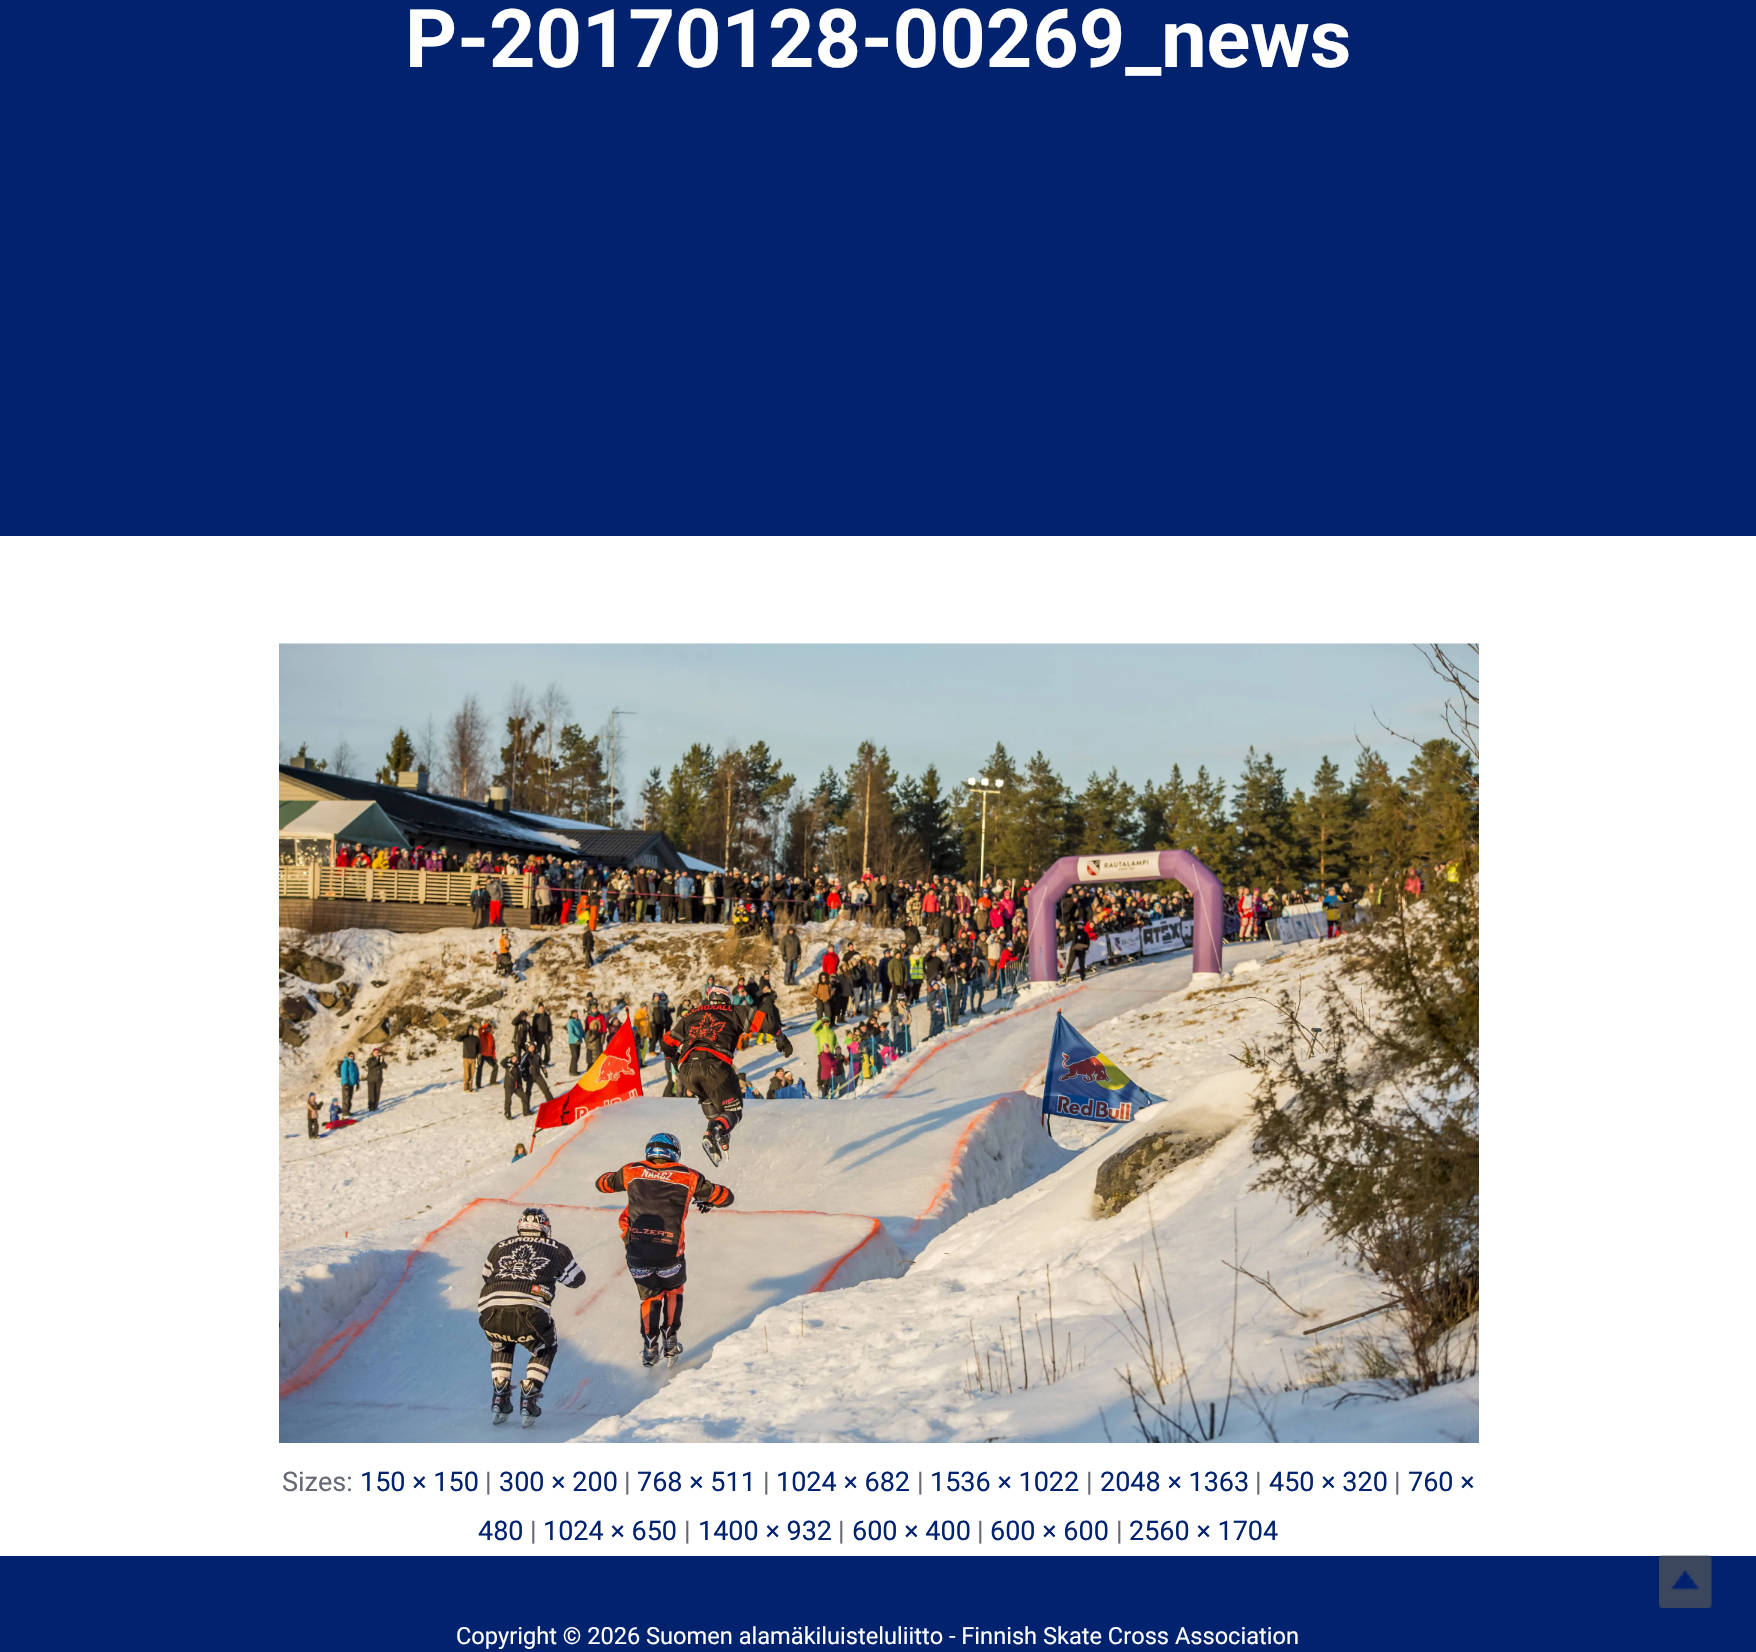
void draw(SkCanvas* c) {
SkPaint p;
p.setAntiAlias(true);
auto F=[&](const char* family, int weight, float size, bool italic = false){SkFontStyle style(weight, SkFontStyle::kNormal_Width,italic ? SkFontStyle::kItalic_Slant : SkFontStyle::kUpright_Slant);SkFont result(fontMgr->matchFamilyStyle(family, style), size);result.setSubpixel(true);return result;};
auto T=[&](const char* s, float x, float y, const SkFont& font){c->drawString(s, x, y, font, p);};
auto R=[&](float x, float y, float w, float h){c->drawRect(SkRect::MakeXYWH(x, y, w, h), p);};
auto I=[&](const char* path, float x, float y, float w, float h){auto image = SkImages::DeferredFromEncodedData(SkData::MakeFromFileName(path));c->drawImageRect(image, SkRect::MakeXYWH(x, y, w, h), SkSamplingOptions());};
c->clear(0xffffffff);
p.setColor(0xff00226f);
R(0,0,1756,536);
auto f1 = F("Roboto",700,81);
p.setColor(0xffffffff);
T("P-20170128-00269_news",405,67,f1);
I("1.png",279,643,1200,800);
auto f2 = F("Roboto",400,27);
p.setColor(0xff666975);
T("Sizes:",282,1491,f2);
p.setColor(0xff00226f);
T("150 × 150",360,1491,f2);
p.setColor(0xff666975);
T("|",485,1491,f2);
p.setColor(0xff00226f);
T("300 × 200",499,1491,f2);
p.setColor(0xff666975);
T("|",624,1491,f2);
p.setColor(0xff00226f);
T("768 × 511",637,1491,f2);
p.setColor(0xff666975);
T("|",763,1491,f2);
p.setColor(0xff00226f);
T("1024 × 682",776,1491,f2);
p.setColor(0xff666975);
T("|",917,1491,f2);
p.setColor(0xff00226f);
T("1536 × 1022",930,1491,f2);
p.setColor(0xff666975);
T("|",1086,1491,f2);
p.setColor(0xff00226f);
T("2048 × 1363",1100,1491,f2);
p.setColor(0xff666975);
T("|",1255,1491,f2);
p.setColor(0xff00226f);
T("450 × 320",1269,1491,f2);
p.setColor(0xff666975);
T("|",1394,1491,f2);
p.setColor(0xff00226f);
T("760 ×",1408,1491,f2);
T("480",478,1540,f2);
p.setColor(0xff666975);
T("|",530,1540,f2);
p.setColor(0xff00226f);
T("1024 × 650",543,1540,f2);
p.setColor(0xff666975);
T("|",684,1540,f2);
p.setColor(0xff00226f);
T("1400 × 932",698,1540,f2);
p.setColor(0xff666975);
T("|",838,1540,f2);
p.setColor(0xff00226f);
T("600 × 400",852,1540,f2);
p.setColor(0xff666975);
T("|",977,1540,f2);
p.setColor(0xff00226f);
T("600 × 600",990,1540,f2);
p.setColor(0xff666975);
T("|",1116,1540,f2);
p.setColor(0xff00226f);
T("2560 × 1704",1129,1540,f2);
R(0,1556,1756,96);
auto f3 = F("Roboto",400,23.6);
p.setColor(0xffffffff);
T("Copyright © 2026 Suomen alamäkiluisteluliitto - Finnish Skate Cross Association",456,1644,f3);
I("2.png",1659,1555,53,53);
}
